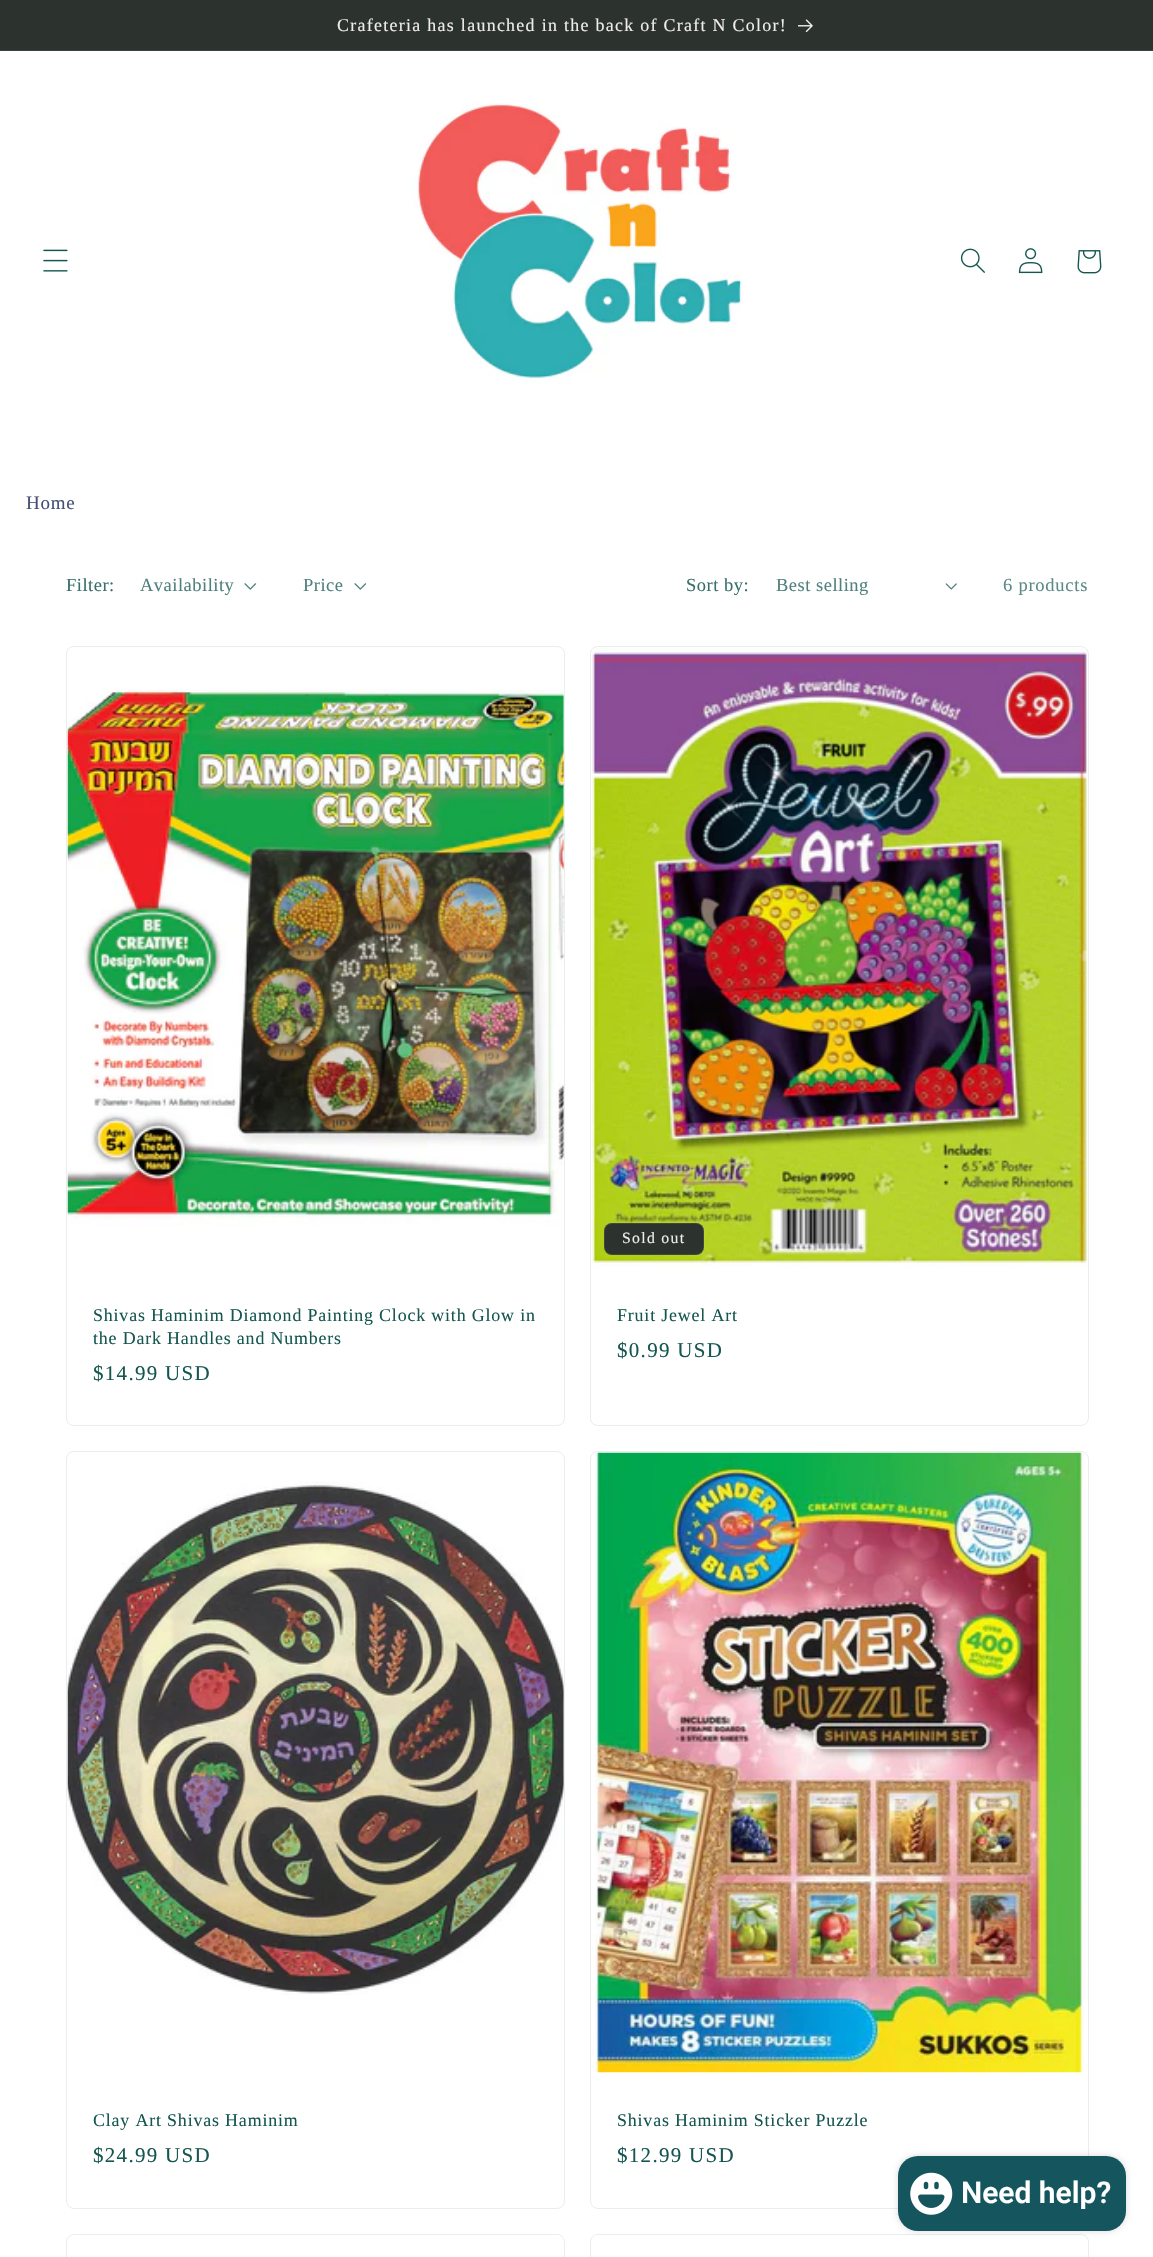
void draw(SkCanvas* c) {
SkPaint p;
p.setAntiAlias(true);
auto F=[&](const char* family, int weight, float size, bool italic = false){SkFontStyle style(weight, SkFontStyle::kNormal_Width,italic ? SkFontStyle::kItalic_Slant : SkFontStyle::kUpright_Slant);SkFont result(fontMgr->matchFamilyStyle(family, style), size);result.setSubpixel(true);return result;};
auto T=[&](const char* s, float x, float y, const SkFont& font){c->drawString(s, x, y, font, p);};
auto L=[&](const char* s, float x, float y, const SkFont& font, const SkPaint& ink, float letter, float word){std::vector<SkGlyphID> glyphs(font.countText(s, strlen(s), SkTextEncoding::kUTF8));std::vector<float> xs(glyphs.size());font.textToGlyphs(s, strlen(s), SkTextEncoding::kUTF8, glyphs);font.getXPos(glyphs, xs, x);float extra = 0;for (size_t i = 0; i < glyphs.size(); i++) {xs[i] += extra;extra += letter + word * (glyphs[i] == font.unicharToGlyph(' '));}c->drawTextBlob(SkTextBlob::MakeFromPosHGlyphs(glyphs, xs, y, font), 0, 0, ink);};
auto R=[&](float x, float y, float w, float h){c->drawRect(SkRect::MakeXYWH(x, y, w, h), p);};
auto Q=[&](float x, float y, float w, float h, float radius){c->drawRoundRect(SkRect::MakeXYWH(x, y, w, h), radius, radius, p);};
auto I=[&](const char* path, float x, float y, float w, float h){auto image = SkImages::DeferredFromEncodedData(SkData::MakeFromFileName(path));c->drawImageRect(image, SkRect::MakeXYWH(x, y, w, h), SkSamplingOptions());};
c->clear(0xffffffff);
p.setColor(0xff2c332f);
R(0,0,1153,50);
p.setColor(0xff3c423e);
R(0,50,1153,1);
auto f1 = F("Liberation Serif",400,17.9);
p.setColor(0xffefecec);
L("Crafeteria has launched in the back of Craft N Color!",337,31,f1,p,1.3,0);
I("1.png",798,19,15,14);
I("2.png",43,249,25,23);
I("3.png",410,103,333,281);
I("4.png",960,248,25,25);
I("5.png",1018,248,25,26);
I("6.png",1077,250,25,24);
auto f2 = F("Liberation Serif",400,19);
p.setColor(0xff465076);
L("Home",26,509,f2,p,.75,0);
auto f3 = F("Liberation Serif",400,18.5);
p.setColor(0xff386f6b);
L("Filter:",66,591,f3,p,.5,0);
p.setColor(0xff50807d);
L("Availability",140,591,f3,p,.5,0);
I("7.png",244,583,13,7);
L("Price",303,591,f3,p,.5,0);
I("8.png",354,583,12,7);
p.setColor(0xff386f6b);
L("Sort by:",686,591,f3,p,.5,0);
p.setColor(0xff50807d);
L("Best selling",776,591,f3,p,.5,0);
I("9.png",945,583,12,7);
p.setColor(0xff5b8985);
L("6 products",1003,591,f3,p,.75,0);
p.setStroke(true);
p.setStrokeWidth(1);
p.setColor(0xffe8eeee);
c->drawRoundRect(SkRect::MakeXYWH(66.5,646.5,498,779),7.5,7.5,p);
I("10.png",67,689,497,537);
p.setStroke(false);
p.setColor(0xff155651);
L("Shivas Haminim Diamond Painting Clock with Glow in",93,1321,f1,p,.83,0);
L("the Dark Handles and Numbers",93,1344,f1,p,.83,0);
auto f4 = F("Liberation Serif",400,21);
L("$14.99 USD",93,1380,f4,p,1.3,0);
p.setStroke(true);
p.setColor(0xffe8eeee);
c->drawRoundRect(SkRect::MakeXYWH(590.5,646.5,498,779),7.5,7.5,p);
I("11.png",591,648,497,619);
p.setStroke(false);
p.setColor(0xff2c332f);
Q(604,1223,100,32,8);
p.setStroke(true);
p.setColor(0x1aefecec);
c->drawRoundRect(SkRect::MakeXYWH(604.5,1223.5,99,31),7.5,7.5,p);
auto f5 = F("Liberation Serif",400,15.75);
p.setStroke(false);
p.setColor(0xffefecec);
L("Sold out",622,1243,f5,p,1.3,0);
p.setColor(0xff155651);
L("Fruit Jewel Art",617,1321,f1,p,.83,0);
L("$0.99 USD",617,1357,f4,p,1.3,0);
p.setStroke(true);
p.setColor(0xffe8eeee);
c->drawRoundRect(SkRect::MakeXYWH(66.5,1451.5,498,757),7.5,7.5,p);
I("12.png",67,1481,497,514);
p.setStroke(false);
p.setColor(0xff155651);
L("Clay Art Shivas Haminim",93,2126,f1,p,.83,0);
L("$24.99 USD",93,2162,f4,p,1.3,0);
p.setStroke(true);
p.setColor(0xffe8eeee);
c->drawRoundRect(SkRect::MakeXYWH(590.5,1451.5,498,757),7.5,7.5,p);
I("13.png",595,1452,490,621);
p.setStroke(false);
p.setColor(0xff155651);
L("Shivas Haminim Sticker Puzzle",617,2126,f1,p,.83,0);
L("$12.99 USD",617,2162,f4,p,1.3,0);
p.setStroke(true);
p.setColor(0xffe8eeee);
c->drawRoundRect(SkRect::MakeXYWH(66.5,2234.5,498,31),7.5,7.5,p);
I("14.png",71,2235,489,1);
c->drawRoundRect(SkRect::MakeXYWH(590.5,2234.5,498,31),7.5,7.5,p);
I("15.png",595,2235,489,1);
p.setStroke(false);
p.setColor(0x26000000);
p.setMaskFilter(SkMaskFilter::MakeBlur(kNormal_SkBlurStyle, 3));
c->drawRoundRect(SkRect::MakeXYWH(898,2156,228,75),20,20,p);
p.setMaskFilter(nullptr);
p.setColor(0xff15555e);
Q(898,2156,228,75,20);
I("16.png",910,2172,43,43);
auto f6 = F("Roboto",600,30);
p.setColor(0xffffffff);
T("Need help?",961,2203,f6);
}
